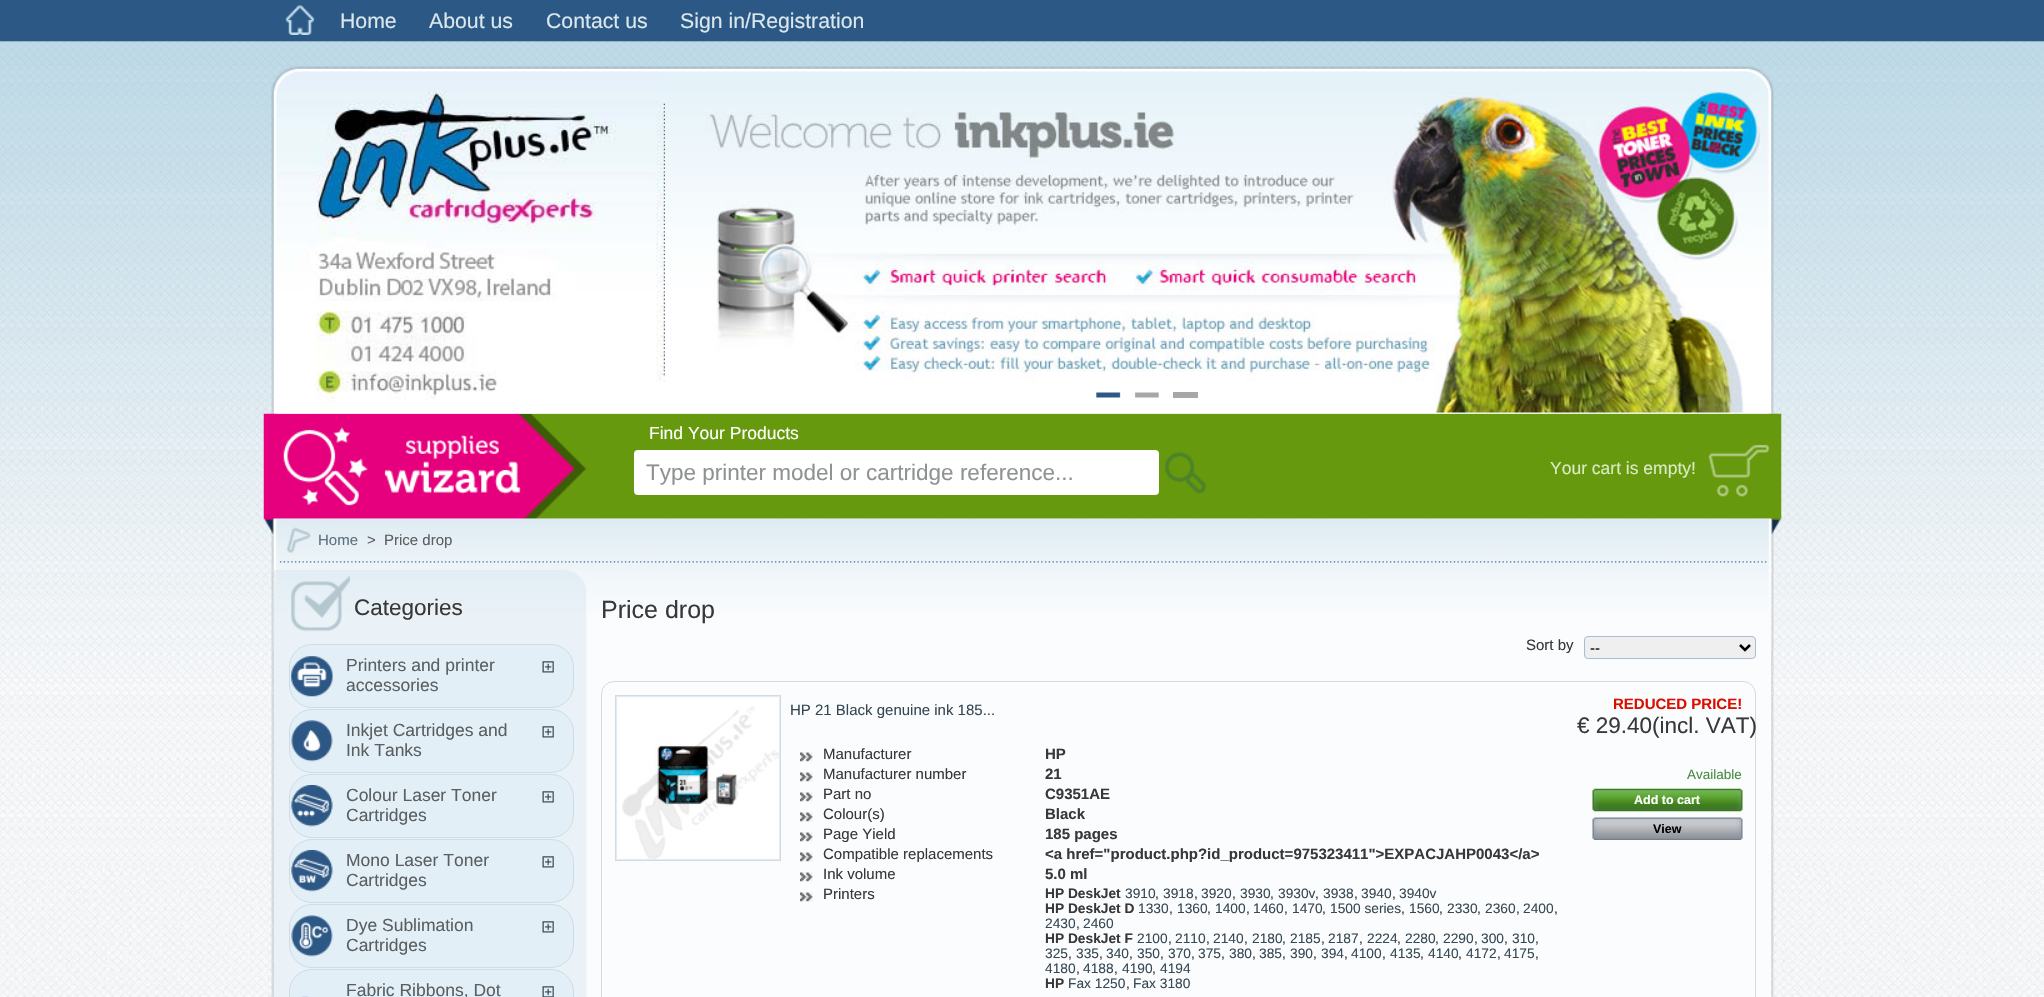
void draw(SkCanvas* c) {
SkPaint p;
p.setAntiAlias(true);
auto F=[&](const char* family, int weight, float size, bool italic = false){SkFontStyle style(weight, SkFontStyle::kNormal_Width,italic ? SkFontStyle::kItalic_Slant : SkFontStyle::kUpright_Slant);SkFont result(fontMgr->matchFamilyStyle(family, style), size);result.setSubpixel(true);return result;};
auto T=[&](const char* s, float x, float y, const SkFont& font){c->drawString(s, x, y, font, p);};
auto R=[&](float x, float y, float w, float h){c->drawRect(SkRect::MakeXYWH(x, y, w, h), p);};
auto Q=[&](float x, float y, float w, float h, float radius){c->drawRoundRect(SkRect::MakeXYWH(x, y, w, h), radius, radius, p);};
auto I=[&](const char* path, float x, float y, float w, float h){auto image = SkImages::DeferredFromEncodedData(SkData::MakeFromFileName(path));c->drawImageRect(image, SkRect::MakeXYWH(x, y, w, h), SkSamplingOptions());};
auto P=[&](const char* data, bool evenOdd = false){SkPath result = *SkParsePath::FromSVGString(data);if (evenOdd) result.setFillType(SkPathFillType::kEvenOdd);return result;};
c->clear(0xffffffff);
I("1.png",0,866,2044,131);
I("2.png",0,0,2044,866);
I("3.png",285,5,30,30);
auto f1 = F("Liberation Sans",400,21.25);
p.setColor(0xffdae7ed);
T("Home",340,28,f1);
T("About us",429,28,f1);
T("Contact us",546,28,f1);
T("Sign in/Registration",680,28,f1);
I("4.png",271,66,1503,348);
I("9.png",263,413,1519,121);
I("5.png",276,71,389,343);
I("6.png",665,71,1104,343);
I("7.png",1096,392,25,6);
I("8.png",1134,392,25,6);
p.setColor(0xffa7a7a7);
R(1173,392,25,6);
auto f2 = F("Liberation Sans",400,17.5);
p.setColor(0xffffffff);
T("Find Your Products",649,439,f2);
Q(634,450,525,45,4);
auto f3 = F("Liberation Sans",400,22.5);
p.setColor(0xff8f9293);
T("Type printer model or cartridge reference...",646,480,f3);
I("10.png",1165,452,42,42);
p.setColor(0xffd9ebc2);
T("Your cart is empty!",1550,474,f2);
I("11.png",271,518,1503,479);
I("12.png",273,518,1499,133);
I("13.png",286,527,25,26);
auto f4 = F("Liberation Sans",400,15);
p.setColor(0xff5d717e);
T("Home",318,545,f4);
p.setColor(0xff5a5f61);
T(">",367,545,f4);
T("Price drop",384,545,f4);
I("14.png",291,576,59,56);
p.setColor(0xff383838);
T("Categories",354,615,f3);
p.setColor(0xffe3eff7);
Q(289,644,285,64,23);
I("15.png",291,656,42,41);
p.setStroke(true);
p.setStrokeWidth(1);
p.setColor(0xffd0dbe5);
c->drawRoundRect(SkRect::MakeXYWH(289.5,644.5,284,63),22.5,22.5,p);
p.setStroke(false);
p.setColor(0xff5a5f61);
T("Printers and printer",346,671,f2);
T("accessories",346,691,f2);
I("16.png",542,661,12,12);
p.setColor(0xffe3eff7);
Q(289,709,285,64,23);
I("17.png",291,720,42,42);
p.setStroke(true);
p.setColor(0xffd0dbe5);
c->drawRoundRect(SkRect::MakeXYWH(289.5,709.5,284,63),22.5,22.5,p);
p.setStroke(false);
p.setColor(0xff5a5f61);
T("Inkjet Cartridges and",346,736,f2);
T("Ink Tanks",346,756,f2);
I("16.png",542,726,12,12);
p.setColor(0xffe3eff7);
Q(289,774,285,64,23);
I("18.png",291,785,42,42);
p.setStroke(true);
p.setColor(0xffd0dbe5);
c->drawRoundRect(SkRect::MakeXYWH(289.5,774.5,284,63),22.5,22.5,p);
p.setStroke(false);
p.setColor(0xff5a5f61);
T("Colour Laser Toner",346,801,f2);
T("Cartridges",346,821,f2);
I("16.png",542,791,12,12);
p.setColor(0xffe3eff7);
Q(289,839,285,64,23);
I("19.png",291,850,42,42);
p.setStroke(true);
p.setColor(0xffd0dbe5);
c->drawRoundRect(SkRect::MakeXYWH(289.5,839.5,284,63),22.5,22.5,p);
p.setStroke(false);
p.setColor(0xff5a5f61);
T("Mono Laser Toner",346,866,f2);
T("Cartridges",346,886,f2);
I("16.png",542,856,12,12);
p.setColor(0xffe3eff7);
Q(289,904,285,64,23);
I("20.png",291,915,42,42);
p.setStroke(true);
p.setColor(0xffd0dbe5);
c->drawRoundRect(SkRect::MakeXYWH(289.5,904.5,284,63),22.5,22.5,p);
p.setStroke(false);
p.setColor(0xff5a5f61);
T("Dye Sublimation",346,931,f2);
T("Cartridges",346,951,f2);
I("16.png",542,921,12,12);
p.setColor(0xffe3eff7);
Q(289,969,285,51,23);
I("21.png",301,996,8,1);
p.setStroke(true);
p.setColor(0xffd0dbe5);
c->drawRoundRect(SkRect::MakeXYWH(289.5,969.5,284,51),22.5,22.5,p);
p.setStroke(false);
p.setColor(0xff5a5f61);
T("Fabric Ribbons, Dot",346,996,f2);
I("22.png",542,986,12,11);
auto f5 = F("Liberation Sans",400,25);
p.setColor(0xff383838);
T("Price drop",601,618,f5);
T("Sort by",1526,650,f4);
p.setColor(0xffefefef);
c->drawRoundRect(SkRect::MakeXYWH(1584.5,636.5,171,22),3.5,3.5,p);
p.setStroke(true);
p.setColor(0xffaabccf);
c->drawRoundRect(SkRect::MakeXYWH(1584.5,636.5,171,22),3.5,3.5,p);
p.setStrokeWidth(2.5);
p.setColor(0xff000000);
c->drawPath(P("M1740 645l5 5l5-5"),p);
p.setStroke(false);
T("--",1590,653,f4);
p.setStroke(true);
p.setStrokeWidth(1);
p.setColor(0xffd0dbe5);
c->drawRoundRect(SkRect::MakeXYWH(601.5,681.5,1154,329),12.5,12.5,p);
c->drawRect(SkRect::MakeXYWH(615.5,695.5,165,165),p);
p.setColor(0xffe3eaf0);
c->drawRect(SkRect::MakeXYWH(616.5,696.5,163,163),p);
I("23.png",618,698,161,161);
p.setStroke(false);
p.setColor(0xff374853);
T("HP 21 Black genuine ink 185...",790,715,f4);
I("24.png",800,752,13,10);
p.setColor(0xff383838);
T("Manufacturer",823,759,f4);
auto f6 = F("Liberation Sans",700,15);
T("HP",1045,759,f6);
I("24.png",800,772,13,10);
T("Manufacturer number",823,779,f4);
T("21",1045,779,f6);
I("24.png",800,792,13,10);
T("Part no",823,799,f4);
T("C9351AE",1045,799,f6);
I("24.png",800,812,13,10);
T("Colour(s)",823,819,f4);
T("Black",1045,819,f6);
I("24.png",800,832,13,10);
T("Page Yield",823,839,f4);
T("185 pages",1045,839,f6);
I("24.png",800,852,13,10);
T("Compatible replacements",823,859,f4);
T("<a href=\"product.php?id_product=975323411\">EXPACJAHP0043</a>",1045,859,f6);
I("24.png",800,872,13,10);
T("Ink volume",823,879,f4);
T("5.0 ml",1045,879,f6);
I("24.png",800,892,13,10);
T("Printers",823,899,f4);
auto f7 = F("Liberation Sans",700,13.75);
T("HP DeskJet",1045,898,f7);
auto f8 = F("Liberation Sans",400,13.75);
p.setColor(0xff374853);
T("3910",1125,898,f8);
p.setColor(0xff383838);
T(",",1155,898,f8);
p.setColor(0xff374853);
T("3918",1163,898,f8);
p.setColor(0xff383838);
T(",",1194,898,f8);
p.setColor(0xff374853);
T("3920",1201,898,f8);
p.setColor(0xff383838);
T(",",1232,898,f8);
p.setColor(0xff374853);
T("3930",1240,898,f8);
p.setColor(0xff383838);
T(",",1270,898,f8);
p.setColor(0xff374853);
T("3930v",1278,898,f8);
p.setColor(0xff383838);
T(",",1315,898,f8);
p.setColor(0xff374853);
T("3938",1323,898,f8);
p.setColor(0xff383838);
T(",",1354,898,f8);
p.setColor(0xff374853);
T("3940",1361,898,f8);
p.setColor(0xff383838);
T(",",1392,898,f8);
p.setColor(0xff374853);
T("3940v",1399,898,f8);
p.setColor(0xff383838);
T("HP DeskJet D",1045,913,f7);
p.setColor(0xff374853);
T("1330",1138,913,f8);
p.setColor(0xff383838);
T(",",1169,913,f8);
p.setColor(0xff374853);
T("1360",1177,913,f8);
p.setColor(0xff383838);
T(",",1207,913,f8);
p.setColor(0xff374853);
T("1400",1215,913,f8);
p.setColor(0xff383838);
T(",",1246,913,f8);
p.setColor(0xff374853);
T("1460",1253,913,f8);
p.setColor(0xff383838);
T(",",1284,913,f8);
p.setColor(0xff374853);
T("1470",1292,913,f8);
p.setColor(0xff383838);
T(",",1322,913,f8);
p.setColor(0xff374853);
T("1500 series",1330,913,f8);
p.setColor(0xff383838);
T(",",1401,913,f8);
p.setColor(0xff374853);
T("1560",1409,913,f8);
p.setColor(0xff383838);
T(",",1439,913,f8);
p.setColor(0xff374853);
T("2330",1447,913,f8);
p.setColor(0xff383838);
T(",",1477,913,f8);
p.setColor(0xff374853);
T("2360",1485,913,f8);
p.setColor(0xff383838);
T(",",1516,913,f8);
p.setColor(0xff374853);
T("2400",1523,913,f8);
p.setColor(0xff383838);
T(",",1554,913,f8);
p.setColor(0xff374853);
T("2430",1045,928,f8);
p.setColor(0xff383838);
T(",",1076,928,f8);
p.setColor(0xff374853);
T("2460",1083,928,f8);
p.setColor(0xff383838);
T("HP DeskJet F",1045,943,f7);
p.setColor(0xff374853);
T("2100",1137,943,f8);
p.setColor(0xff383838);
T(",",1168,943,f8);
p.setColor(0xff374853);
T("2110",1175,943,f8);
p.setColor(0xff383838);
T(",",1206,943,f8);
p.setColor(0xff374853);
T("2140",1213,943,f8);
p.setColor(0xff383838);
T(",",1244,943,f8);
p.setColor(0xff374853);
T("2180",1252,943,f8);
p.setColor(0xff383838);
T(",",1282,943,f8);
p.setColor(0xff374853);
T("2185",1290,943,f8);
p.setColor(0xff383838);
T(",",1321,943,f8);
p.setColor(0xff374853);
T("2187",1328,943,f8);
p.setColor(0xff383838);
T(",",1359,943,f8);
p.setColor(0xff374853);
T("2224",1367,943,f8);
p.setColor(0xff383838);
T(",",1397,943,f8);
p.setColor(0xff374853);
T("2280",1405,943,f8);
p.setColor(0xff383838);
T(",",1435,943,f8);
p.setColor(0xff374853);
T("2290",1443,943,f8);
p.setColor(0xff383838);
T(",",1474,943,f8);
p.setColor(0xff374853);
T("300",1481,943,f8);
p.setColor(0xff383838);
T(",",1504,943,f8);
p.setColor(0xff374853);
T("310",1512,943,f8);
p.setColor(0xff383838);
T(",",1535,943,f8);
p.setColor(0xff374853);
T("325",1045,958,f8);
p.setColor(0xff383838);
T(",",1068,958,f8);
p.setColor(0xff374853);
T("335",1076,958,f8);
p.setColor(0xff383838);
T(",",1099,958,f8);
p.setColor(0xff374853);
T("340",1106,958,f8);
p.setColor(0xff383838);
T(",",1129,958,f8);
p.setColor(0xff374853);
T("350",1137,958,f8);
p.setColor(0xff383838);
T(",",1160,958,f8);
p.setColor(0xff374853);
T("370",1168,958,f8);
p.setColor(0xff383838);
T(",",1191,958,f8);
p.setColor(0xff374853);
T("375",1198,958,f8);
p.setColor(0xff383838);
T(",",1221,958,f8);
p.setColor(0xff374853);
T("380",1229,958,f8);
p.setColor(0xff383838);
T(",",1252,958,f8);
p.setColor(0xff374853);
T("385",1259,958,f8);
p.setColor(0xff383838);
T(",",1282,958,f8);
p.setColor(0xff374853);
T("390",1290,958,f8);
p.setColor(0xff383838);
T(",",1313,958,f8);
p.setColor(0xff374853);
T("394",1321,958,f8);
p.setColor(0xff383838);
T(",",1344,958,f8);
p.setColor(0xff374853);
T("4100",1351,958,f8);
p.setColor(0xff383838);
T(",",1382,958,f8);
p.setColor(0xff374853);
T("4135",1390,958,f8);
p.setColor(0xff383838);
T(",",1420,958,f8);
p.setColor(0xff374853);
T("4140",1428,958,f8);
p.setColor(0xff383838);
T(",",1458,958,f8);
p.setColor(0xff374853);
T("4172",1466,958,f8);
p.setColor(0xff383838);
T(",",1497,958,f8);
p.setColor(0xff374853);
T("4175",1504,958,f8);
p.setColor(0xff383838);
T(",",1535,958,f8);
p.setColor(0xff374853);
T("4180",1045,973,f8);
p.setColor(0xff383838);
T(",",1076,973,f8);
p.setColor(0xff374853);
T("4188",1083,973,f8);
p.setColor(0xff383838);
T(",",1114,973,f8);
p.setColor(0xff374853);
T("4190",1122,973,f8);
p.setColor(0xff383838);
T(",",1152,973,f8);
p.setColor(0xff374853);
T("4194",1160,973,f8);
p.setColor(0xff383838);
T("HP",1045,988,f7);
p.setColor(0xff374853);
T("Fax 1250",1068,988,f8);
p.setColor(0xff383838);
T(",",1126,988,f8);
p.setColor(0xff374853);
T("Fax 3180",1133,988,f8);
p.setColor(0xffda0f00);
T("REDUCED PRICE!",1613,709,f6);
p.setColor(0xff383838);
T("€ 29.40(incl. VAT)",1577,733,f3);
auto f9 = F("Liberation Sans",400,13.5);
p.setColor(0xff488c40);
T("Available",1687,779,f9);
I("25.png",1592,788,151,24);
auto f10 = F("Liberation Sans",700,12.5);
p.setColor(0xffffffff);
T("Add to cart",1634,804,f10);
I("26.png",1592,817,151,23);
p.setColor(0xff000000);
T("View",1653,833,f10);
}
